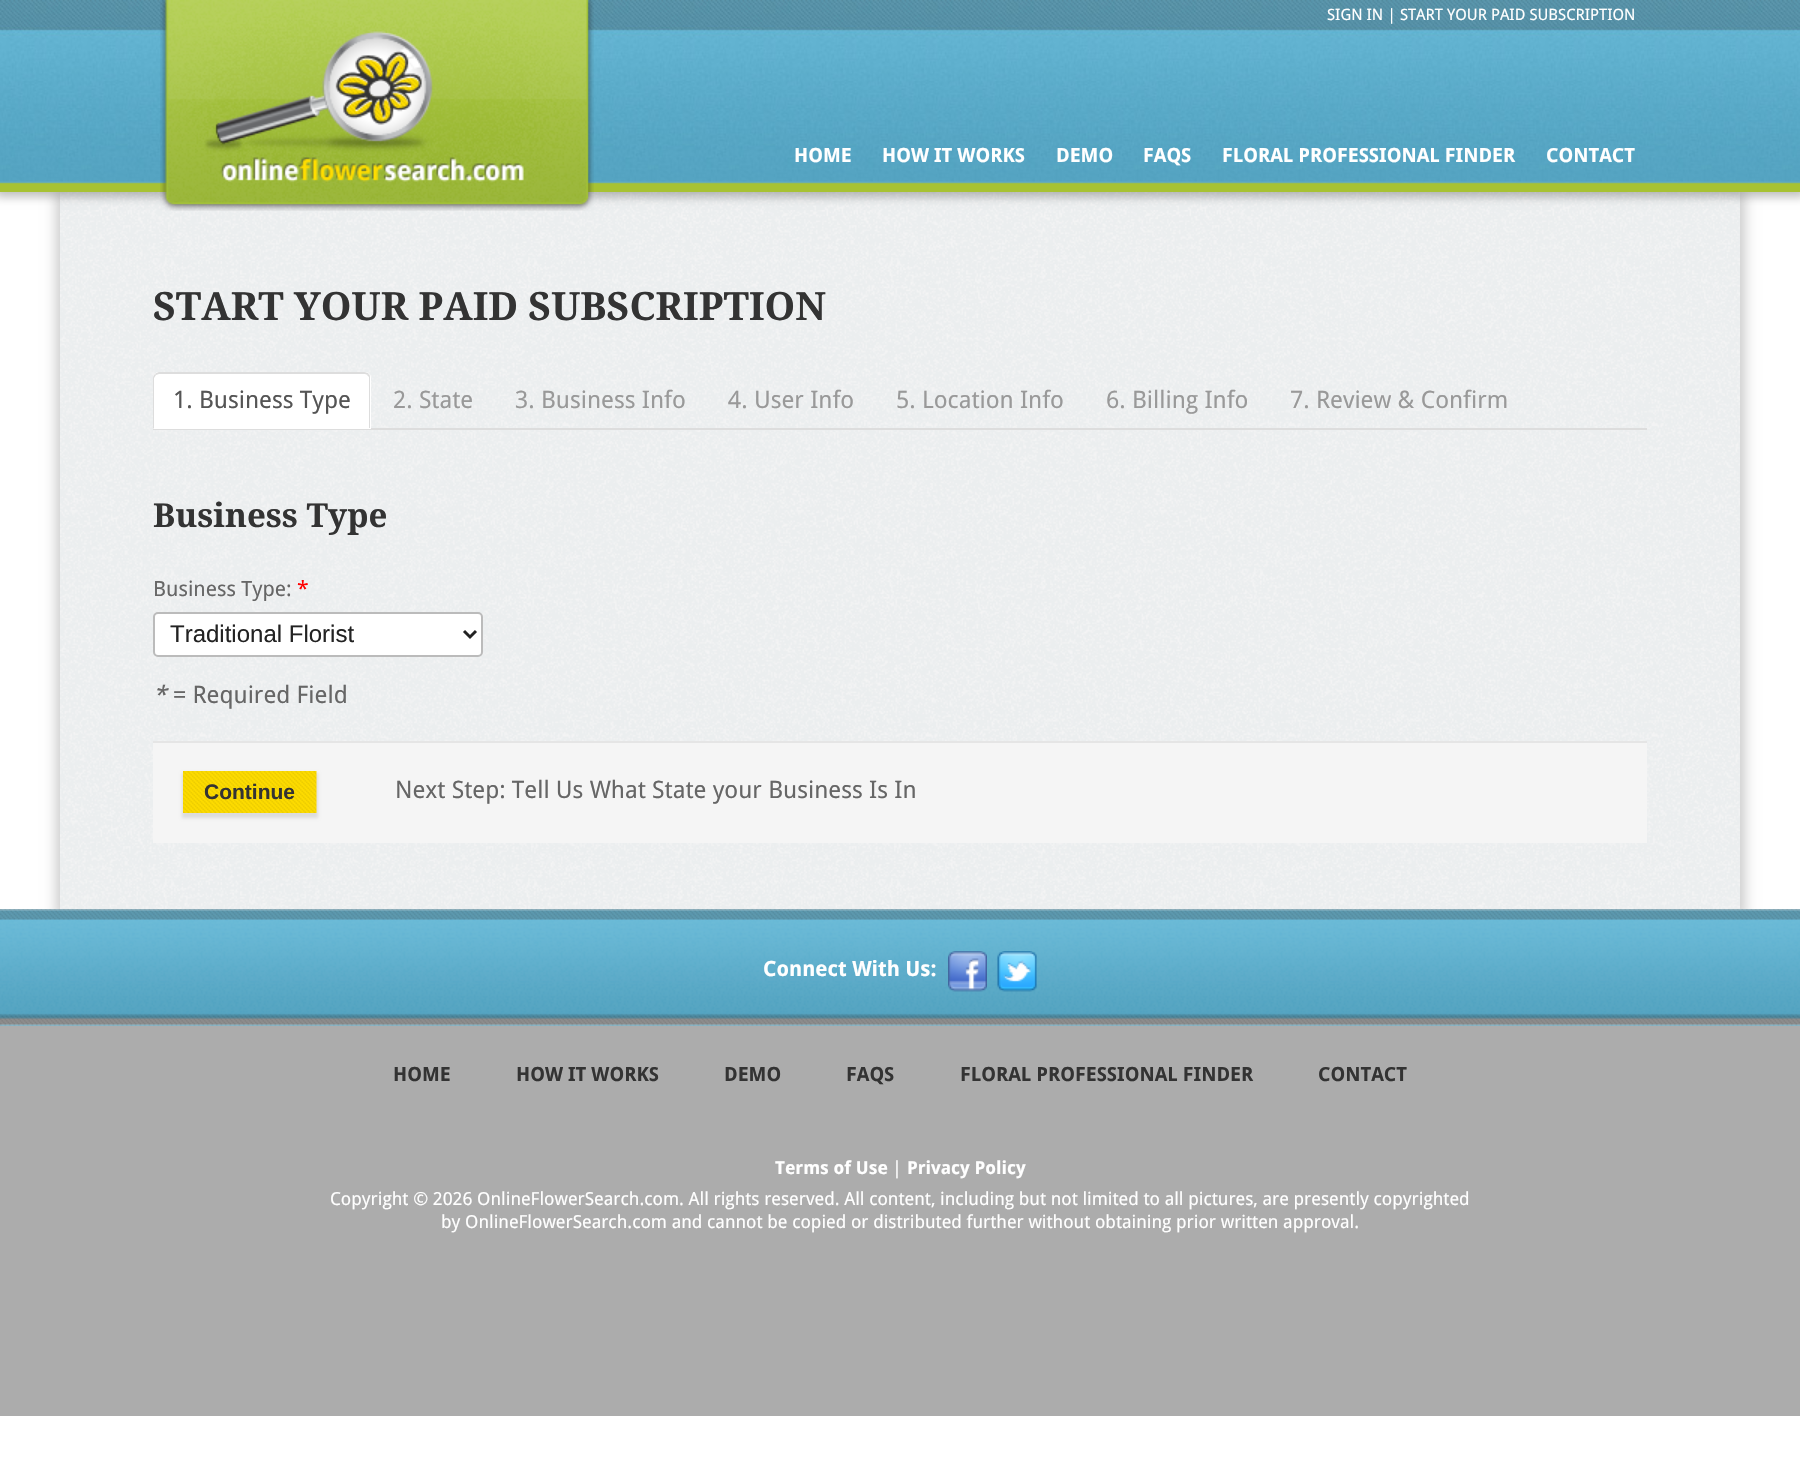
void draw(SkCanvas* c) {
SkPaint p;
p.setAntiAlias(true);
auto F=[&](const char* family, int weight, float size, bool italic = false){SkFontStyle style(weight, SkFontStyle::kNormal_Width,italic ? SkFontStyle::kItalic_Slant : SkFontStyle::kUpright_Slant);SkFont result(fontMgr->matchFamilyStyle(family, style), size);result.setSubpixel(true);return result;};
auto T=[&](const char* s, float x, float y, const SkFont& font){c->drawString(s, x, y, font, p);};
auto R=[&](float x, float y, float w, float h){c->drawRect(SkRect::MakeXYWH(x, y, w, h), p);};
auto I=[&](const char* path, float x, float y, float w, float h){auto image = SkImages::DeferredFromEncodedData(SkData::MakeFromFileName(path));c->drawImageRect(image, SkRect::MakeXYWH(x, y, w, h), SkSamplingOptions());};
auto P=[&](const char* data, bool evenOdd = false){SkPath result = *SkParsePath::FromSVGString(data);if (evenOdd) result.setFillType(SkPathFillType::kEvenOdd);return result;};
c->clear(0xffffffff);
p.setColor(0x33000000);
p.setMaskFilter(SkMaskFilter::MakeBlur(kNormal_SkBlurStyle, 6));
c->drawRect(SkRect::MakeXYWH(56,192,1689,726),p);
p.setMaskFilter(nullptr);
I("3.png",60,192,1680,717);
p.setColor(0x40000000);
p.setMaskFilter(SkMaskFilter::MakeBlur(kNormal_SkBlurStyle, 4.5));
c->drawRect(SkRect::MakeXYWH(-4,-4,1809,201),p);
p.setMaskFilter(nullptr);
I("1.png",0,0,1800,192);
I("2.png",160,0,434,211);
auto f1 = F("Droid Sans",400,15.6);
p.setColor(0xffffffff);
T("SIGN IN | START YOUR PAID SUBSCRIPTION",1327,20,f1);
auto f2 = F("Droid Sans",700,19.5);
T("HOME",794,162,f2);
T("HOW IT WORKS",882,162,f2);
T("DEMO",1056,162,f2);
T("FAQS",1143,162,f2);
T("FLORAL PROFESSIONAL FINDER",1222,162,f2);
T("CONTACT",1546,162,f2);
auto f3 = F("Droid Serif",700,39);
p.setColor(0xff333333);
T("START YOUR PAID SUBSCRIPTION",153,320,f3);
p.setColor(0xffdddddd);
R(153,428,1494,2);
p.setColor(0xffffffff);
c->drawPath(P("M159 372h206c3.5 0 6 2.5 6 6v51h-218v-51c0-3.5 2.5-6 6-6z"),p);
p.setColor(0xffdddddd);
c->drawPath(P("M159 372c-1 0-3 1-4 2l1 1l3-1h205c1 0 3 0 3 1l2-1c-1-1-3-2-5-2z"),p);
c->drawPath(P("M369 374c1 1 1 3 1 4v50h-1v-51l-2-2z"),p);
c->drawPath(P("M153 429l1-1v-50l2-3l-1-1c-1 1-2 2-2 4z"),p);
auto f4 = F("Droid Sans",400,24);
p.setColor(0xff555555);
T("1. Business Type",173,408,f4);
p.setColor(0xff999999);
T("2. State",393,408,f4);
T("3. Business Info",515,408,f4);
T("4. User Info",728,408,f4);
T("5. Location Info",896,408,f4);
T("6. Billing Info",1106,408,f4);
T("7. Review & Confirm",1290,408,f4);
auto f5 = F("Droid Serif",700,33);
p.setColor(0xff333333);
T("Business Type",153,527,f5);
auto f6 = F("Droid Sans",400,21);
p.setColor(0xff666666);
T("Business Type:",153,596,f6);
p.setColor(0xffff0000);
T("*",297,596,f6);
p.setColor(0xffffffff);
c->drawRoundRect(SkRect::MakeXYWH(154,613,328,43),4,4,p);
p.setStroke(true);
p.setStrokeWidth(2);
p.setColor(0xffbbbbbb);
c->drawRoundRect(SkRect::MakeXYWH(154,613,328,43),4,4,p);
p.setStrokeWidth(3);
p.setColor(0xff222222);
c->drawPath(P("M464 631l6 6l6-6"),p);
auto f7 = F("Liberation Sans",400,24);
p.setStroke(false);
T("Traditional Florist",170,642,f7);
auto f8 = F("Droid Sans",400,24,true);
p.setColor(0xff666666);
T("*",153,703,f8);
T("= Required Field",173,703,f4);
p.setColor(0xfff5f5f5);
R(153,743,1494,100);
p.setColor(0xffe5e5e5);
R(153,741,1494,2);
p.setColor(0x1a000000);
p.setMaskFilter(SkMaskFilter::MakeBlur(kNormal_SkBlurStyle, 1.5));
c->drawRect(SkRect::MakeXYWH(182,773,136,45),p);
p.setMaskFilter(nullptr);
I("4.png",183,771,134,42);
auto f9 = F("Liberation Sans",700,21);
p.setColor(0xff333333);
T("Continue",204,799,f9);
p.setColor(0xff666666);
T("Next Step: Tell Us What State your Business Is In",395,798,f4);
p.setColor(0xffacacac);
R(0,1026,1800,390);
I("5.png",0,909,1800,117);
auto f10 = F("Droid Sans",700,21);
p.setColor(0xffffffff);
T("Connect With Us:",763,976,f10);
I("6.png",948,951,39,41);
I("7.png",997,951,40,41);
p.setColor(0xff333333);
T("HOME",393,1081,f2);
T("HOW IT WORKS",516,1081,f2);
T("DEMO",724,1081,f2);
T("FAQS",846,1081,f2);
T("FLORAL PROFESSIONAL FINDER",960,1081,f2);
T("CONTACT",1318,1081,f2);
auto f11 = F("Droid Sans",700,18);
p.setColor(0xffffffff);
T("Terms of Use",775,1174,f11);
auto f12 = F("Droid Sans",400,18);
T("|",892,1174,f12);
T("Privacy Policy",907,1174,f11);
T("Copyright © 2026 OnlineFlowerSearch.com. All rights reserved. All content, including but not limited to all pictures, are presently copyrighted",330,1205,f12);
T("by OnlineFlowerSearch.com and cannot be copied or distributed further without obtaining prior written approval.",441,1228,f12);
}
